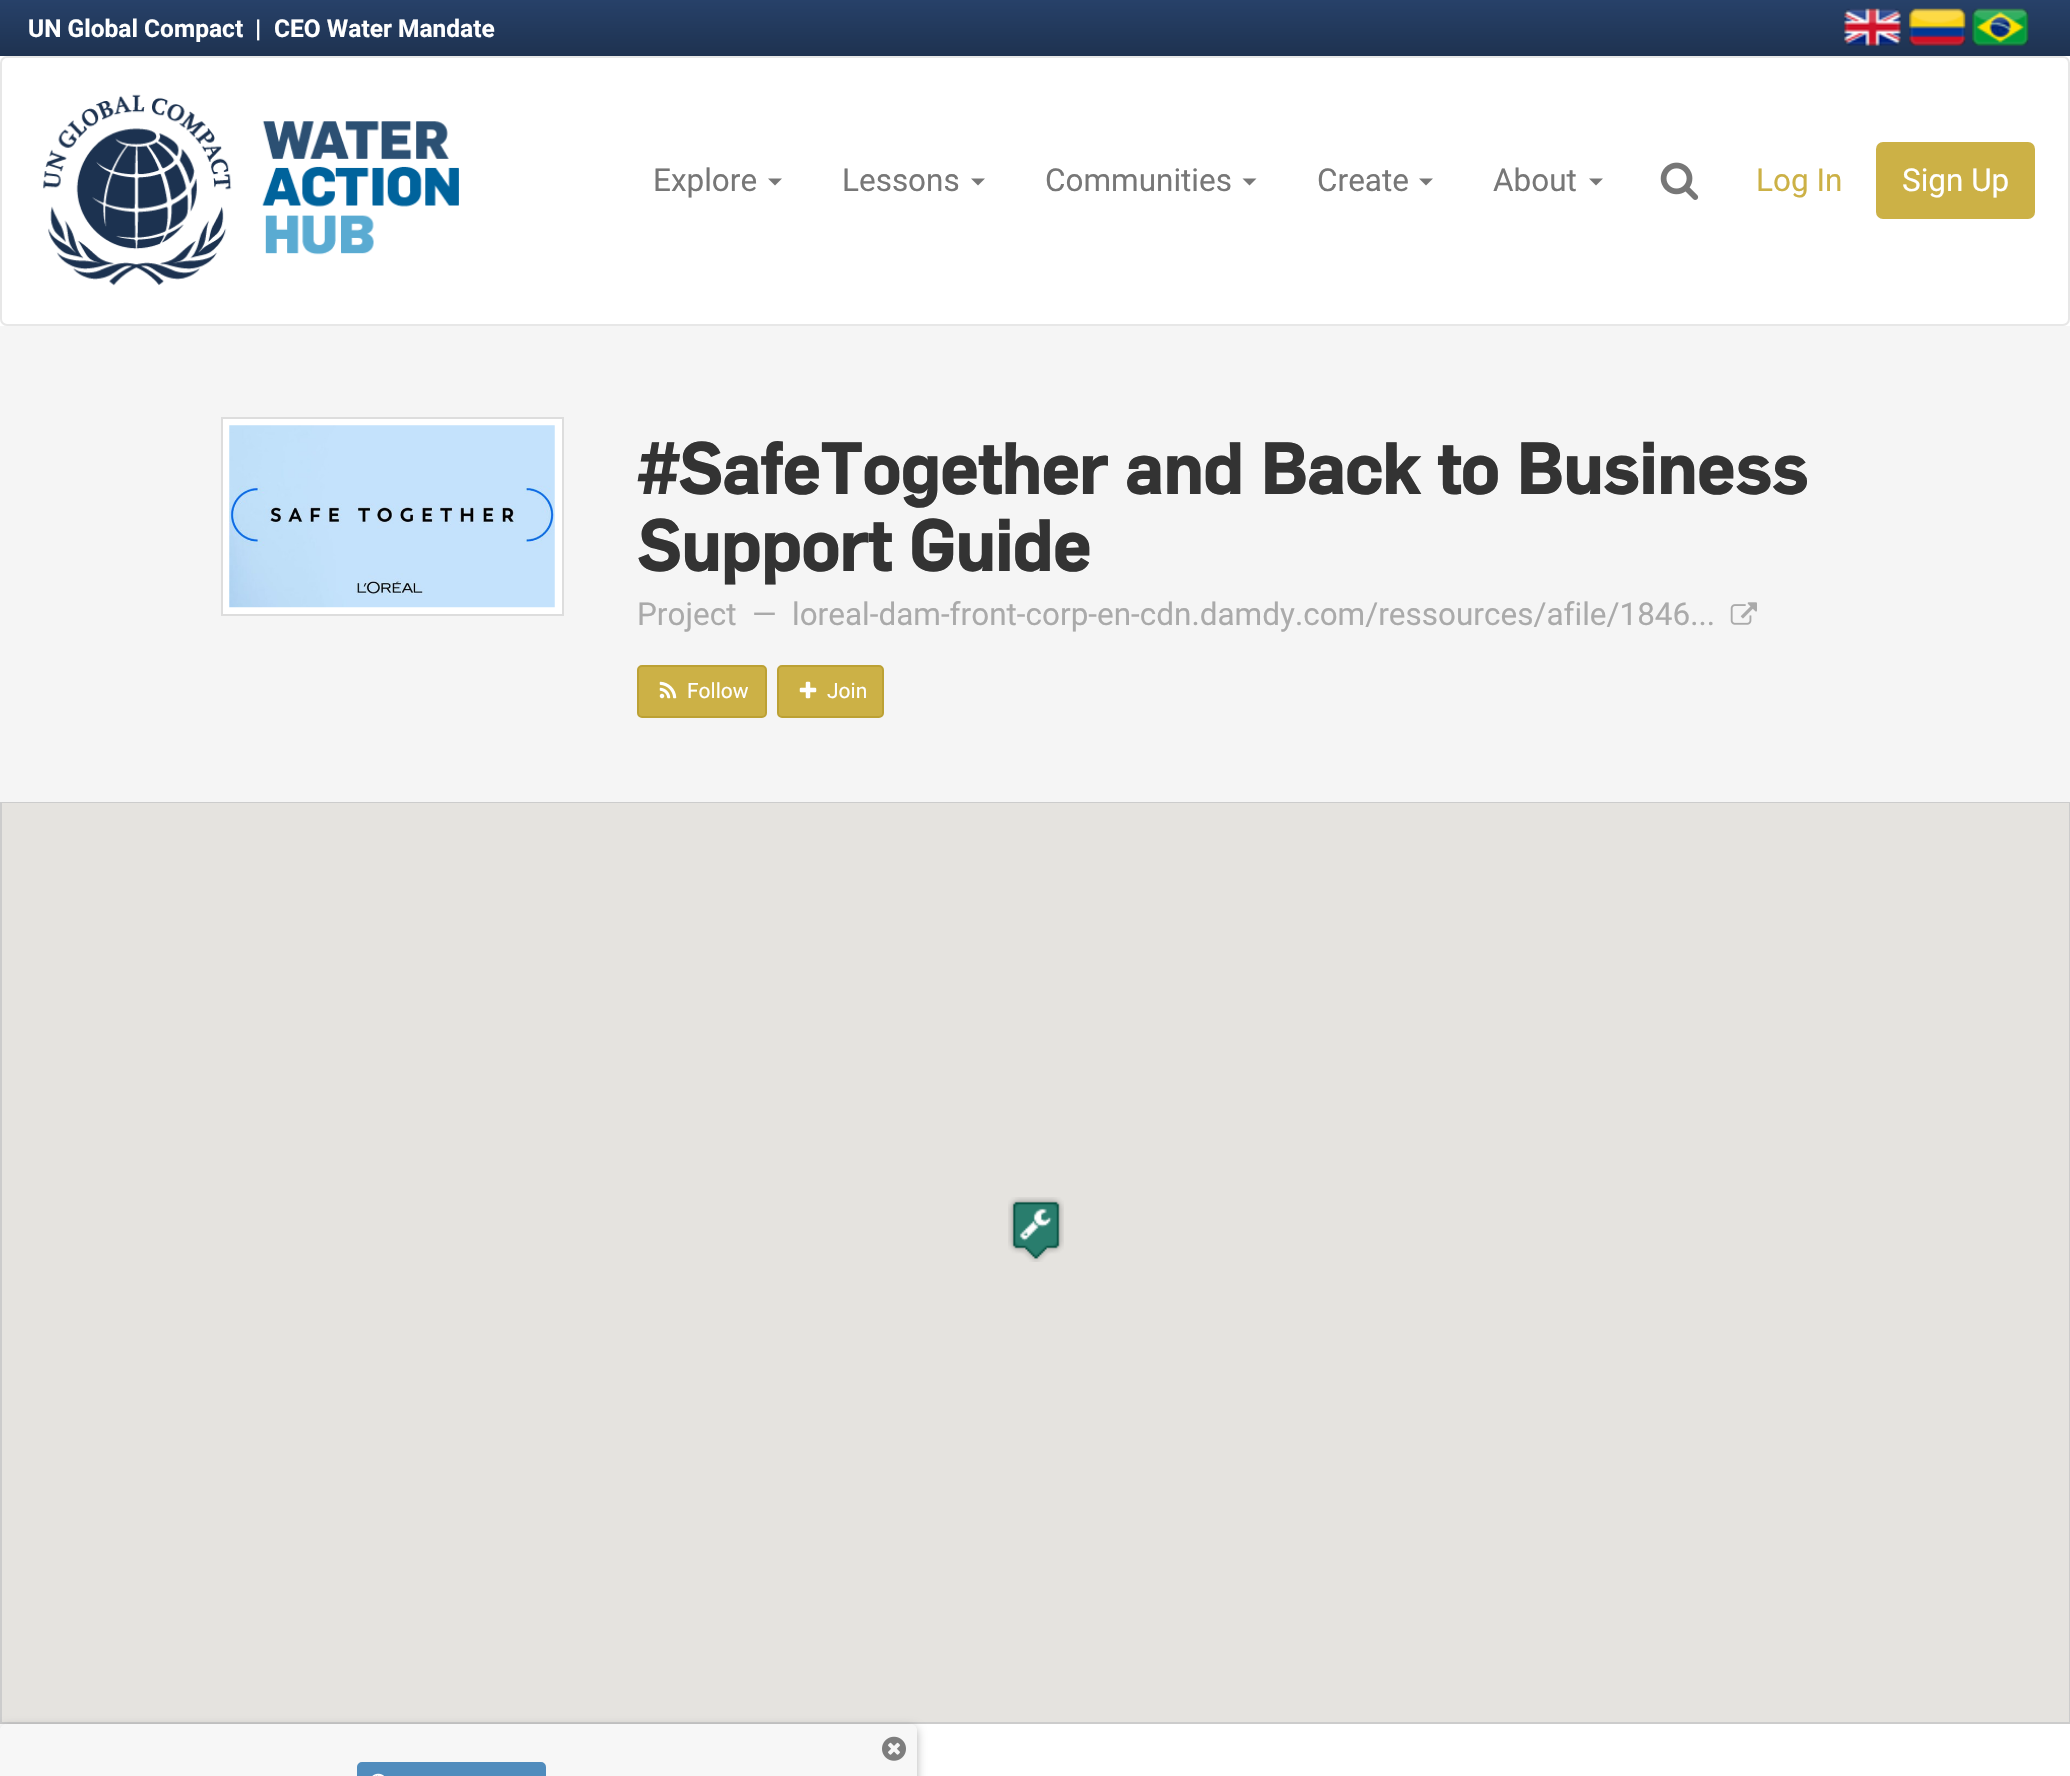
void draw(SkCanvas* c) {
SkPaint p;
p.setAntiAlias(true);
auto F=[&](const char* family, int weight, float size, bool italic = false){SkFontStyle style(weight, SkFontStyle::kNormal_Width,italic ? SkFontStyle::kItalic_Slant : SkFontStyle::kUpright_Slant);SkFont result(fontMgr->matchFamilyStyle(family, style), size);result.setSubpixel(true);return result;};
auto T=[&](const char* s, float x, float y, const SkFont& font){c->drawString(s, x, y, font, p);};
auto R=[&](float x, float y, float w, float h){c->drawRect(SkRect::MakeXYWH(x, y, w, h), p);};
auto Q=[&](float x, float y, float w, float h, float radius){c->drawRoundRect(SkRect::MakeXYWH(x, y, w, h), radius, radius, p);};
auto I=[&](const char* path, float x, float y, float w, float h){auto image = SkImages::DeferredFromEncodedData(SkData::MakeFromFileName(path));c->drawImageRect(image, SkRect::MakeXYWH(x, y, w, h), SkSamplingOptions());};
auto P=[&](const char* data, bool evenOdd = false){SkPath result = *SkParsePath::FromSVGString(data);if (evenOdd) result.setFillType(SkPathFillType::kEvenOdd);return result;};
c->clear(0xffffffff);
{
const SkColor colors[] = {0xff1e3250,0xff274169};
const float stops[] = {0,1};
const SkPoint ends[] = {{1035,56}, {1035,0}};
p.setShader(SkGradientShader::MakeLinear(ends, colors, stops, 2, SkTileMode::kClamp));
p.setAlpha(255);
}
R(0,0,2070,56);
auto f1 = F("Roboto",700,24.5);
p.setShader(nullptr);
p.setColor(0xffffffff);
T("UN Global Compact",28,37,f1);
T("|",255,37,f1);
T("CEO Water Mandate",274,37,f1);
I("1.png",1844,8,57,38);
I("2.png",1909,8,57,38);
I("3.png",1972,8,57,38);
p.setStroke(true);
p.setStrokeWidth(2);
p.setColor(0xffe7e7e7);
c->drawRoundRect(SkRect::MakeXYWH(1,57,2068,268),6,6,p);
I("4.png",43,94,416,192);
auto f2 = F("Roboto",400,31.5);
p.setStroke(false);
p.setColor(0xff777777);
T("Explore",653,191,f2);
c->drawPath(P("M768 178.5h14l-7 7z"),p);
T("Lessons",842,191,f2);
c->drawPath(P("M971 178.5h14l-7 7z"),p);
T("Communities",1045,191,f2);
c->drawPath(P("M1242.5 178.5h14l-7 7z"),p);
T("Create",1317,191,f2);
c->drawPath(P("M1419 178.5h14l-7 7z"),p);
T("About",1493,191,f2);
c->drawPath(P("M1589 178.5h14l-7 7z"),p);
I("5.png",1660,162,39,38);
p.setColor(0xffccb146);
T("Log In",1756,191,f2);
Q(1876,142,159,77,7);
p.setColor(0xffffffff);
T("Sign Up",1902,191,f2);
p.setColor(0xfff5f5f5);
R(0,326,2070,476);
p.setColor(0xffffffff);
c->drawRect(SkRect::MakeXYWH(222,418,341,197),p);
p.setStroke(true);
p.setColor(0xffdddddd);
c->drawRect(SkRect::MakeXYWH(222,418,341,197),p);
I("6.png",229,425,326,183);
auto f3 = F("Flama",700,70);
p.setStroke(false);
p.setColor(0xff333333);
T("#SafeTogether and Back to Business",637,494,f3);
T("Support Guide",637,571,f3);
p.setColor(0xffaaaaaa);
T("Project",637,625,f2);
T("—",752,625,f2);
T("loreal-dam-front-corp-en-cdn.damdy.com/ressources/afile/1846...",792,625,f2);
I("7.png",1730,602,27,23);
p.setColor(0xffccb146);
c->drawRoundRect(SkRect::MakeXYWH(638,666,128,51),4,4,p);
p.setStroke(true);
p.setColor(0xffbca134);
c->drawRoundRect(SkRect::MakeXYWH(638,666,128,51),4,4,p);
I("8.png",659,681,18,18);
auto f4 = F("Roboto",400,21);
p.setStroke(false);
p.setColor(0xffffffff);
T("Follow",687,698,f4);
p.setColor(0xffccb146);
c->drawRoundRect(SkRect::MakeXYWH(778,666,105,51),4,4,p);
p.setStroke(true);
p.setColor(0xffbca134);
c->drawRoundRect(SkRect::MakeXYWH(778,666,105,51),4,4,p);
I("9.png",799,681,18,18);
p.setStroke(false);
p.setColor(0xffffffff);
T("Join",827,698,f4);
p.setStroke(true);
p.setColor(0xffcccccc);
c->drawRect(SkRect::MakeXYWH(1,803,2068,920),p);
p.setStroke(false);
p.setColor(0xffe5e3df);
R(2,803,2067,919);
I("10.png",1008,1197,56,65);
c->save();
c->clipPath(P("M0 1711h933v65h-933zm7 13h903c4 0 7 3 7 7v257h-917v-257c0-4 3-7 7-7z",true),true);
p.setColor(0x4d000000);
p.setMaskFilter(SkMaskFilter::MakeBlur(kNormal_SkBlurStyle, 5));
c->drawRoundRect(SkRect::MakeXYWH(0,1727,917,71),7,7,p);
p.setMaskFilter(nullptr);
c->restore();
p.setColor(0xccf5f5f5);
c->drawPath(P("M7 1724h903c4 0 7 3 7 7v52h-917v-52c0-4 3-7 7-7z"),p);
I("11.png",882,1736,24,25);
p.setColor(0xff508cbd);
c->drawRoundRect(SkRect::MakeXYWH(358,1763,187,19),4,4,p);
p.setStroke(true);
c->drawRoundRect(SkRect::MakeXYWH(358,1763,187,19),4,4,p);
I("12.png",372,1773,12,3);
}
